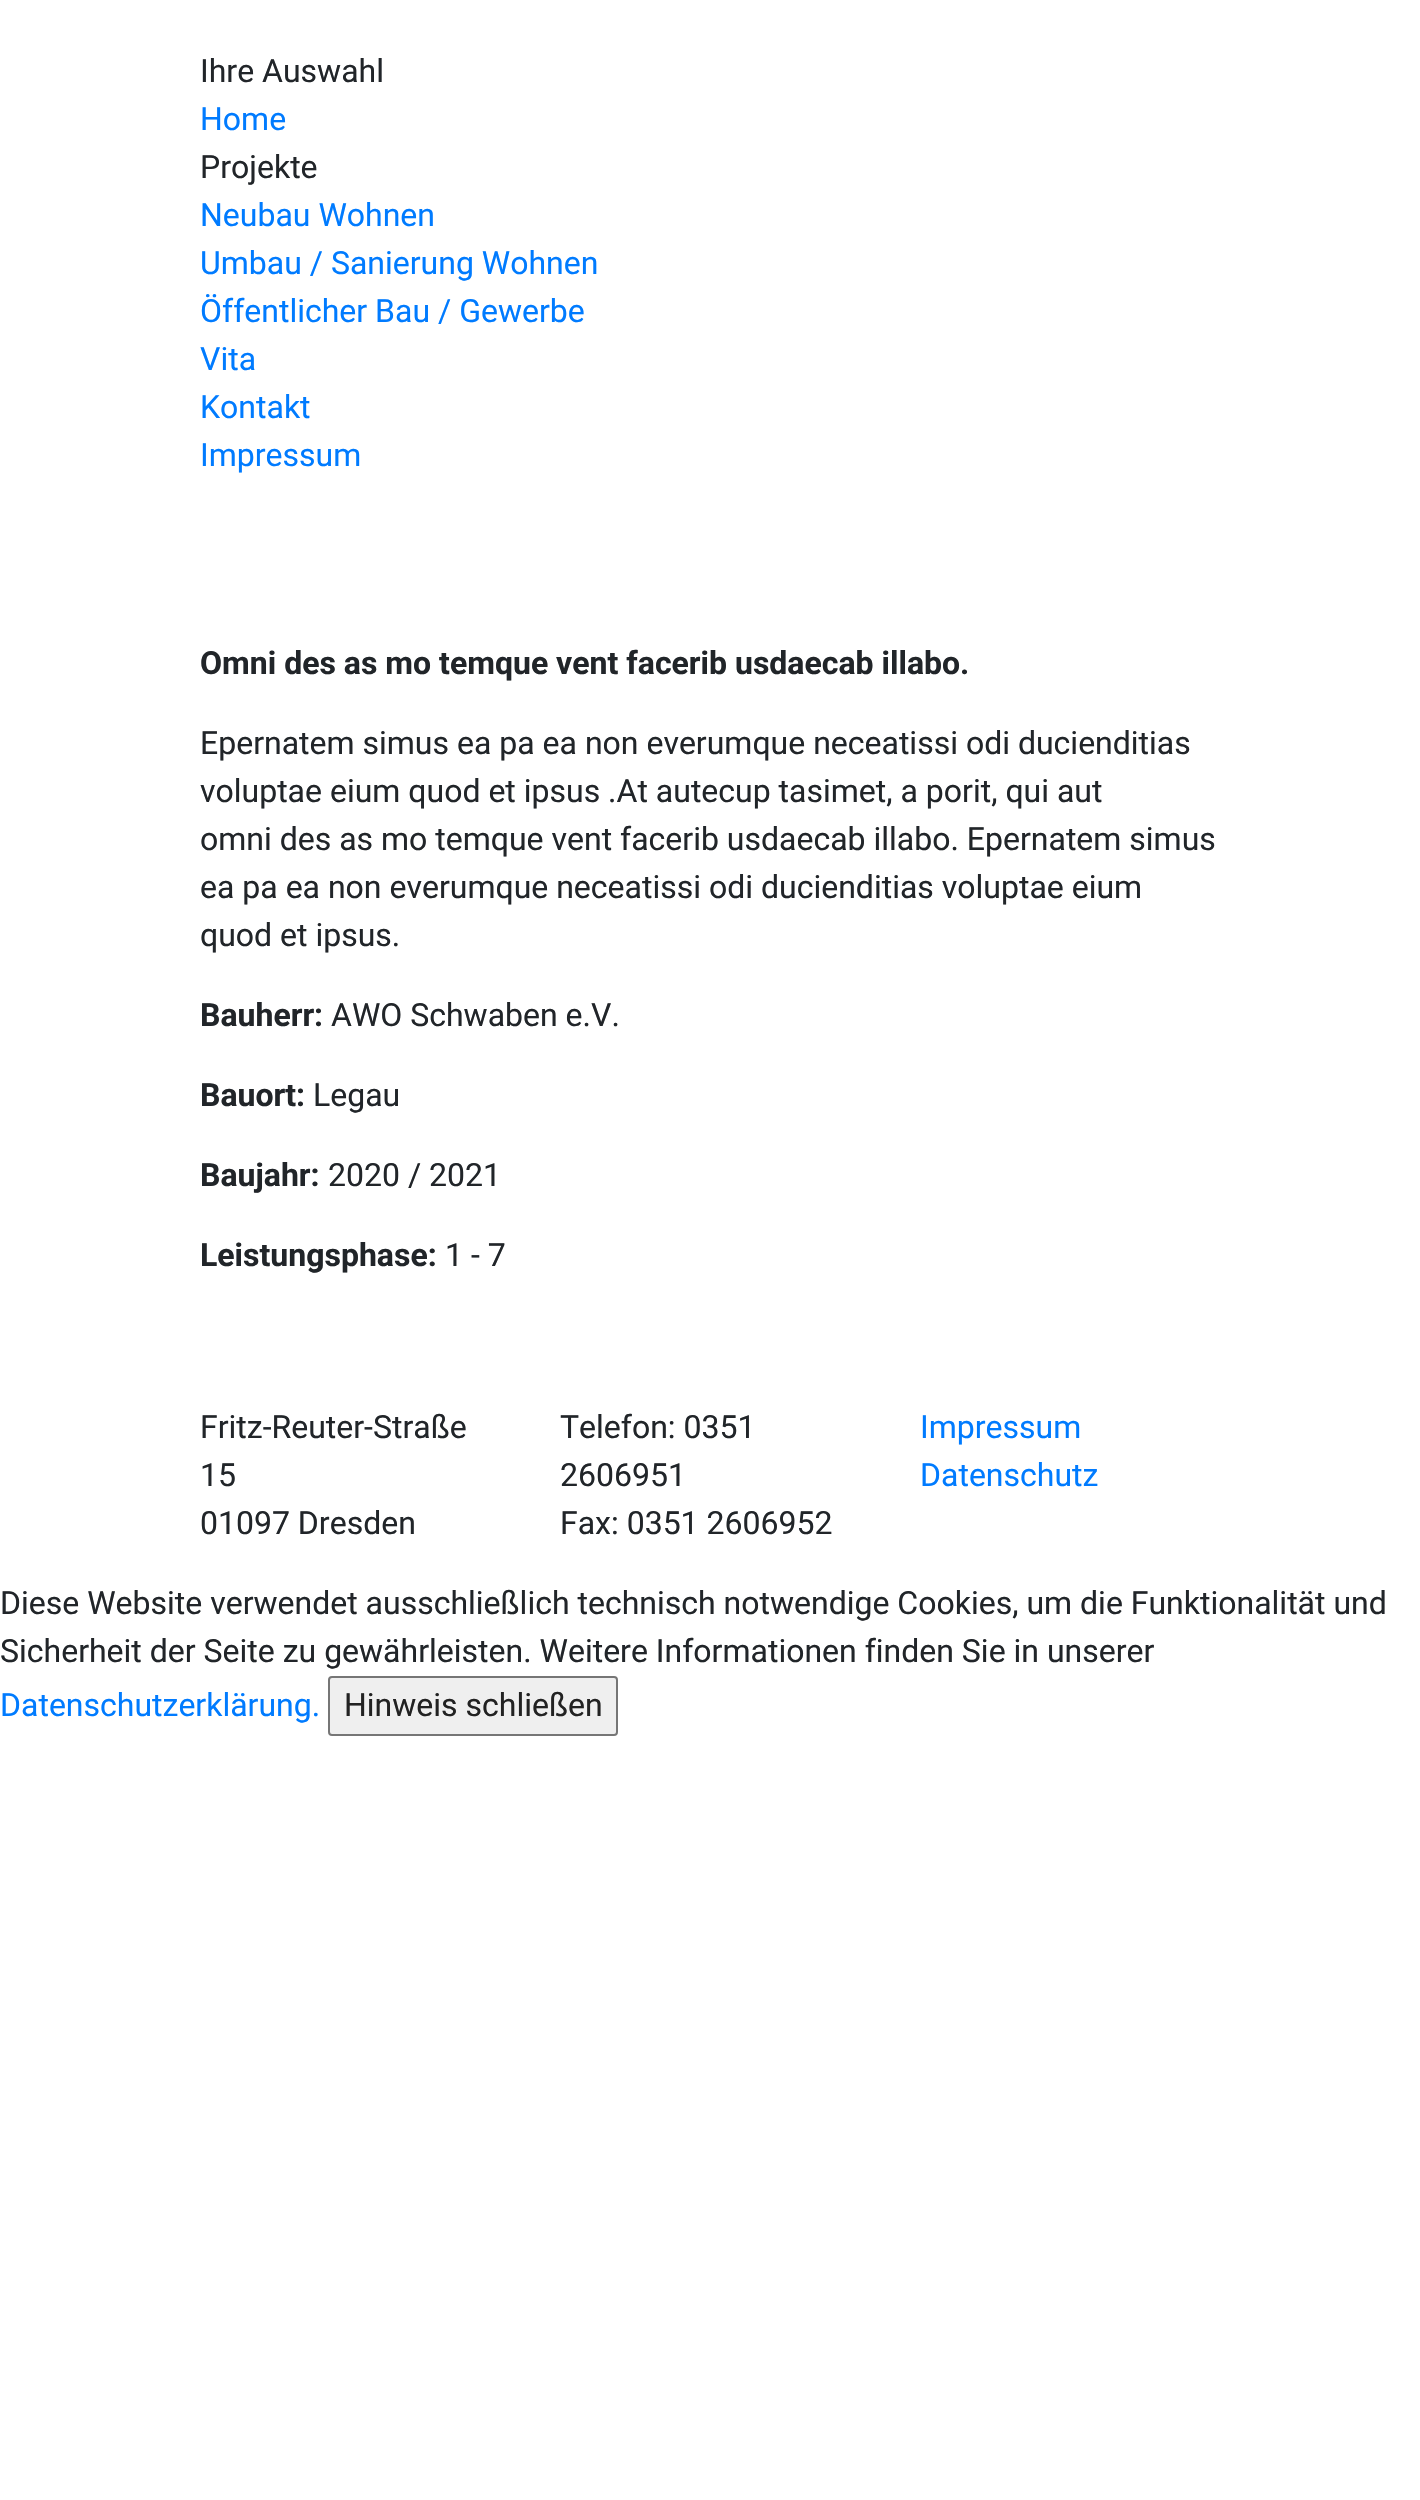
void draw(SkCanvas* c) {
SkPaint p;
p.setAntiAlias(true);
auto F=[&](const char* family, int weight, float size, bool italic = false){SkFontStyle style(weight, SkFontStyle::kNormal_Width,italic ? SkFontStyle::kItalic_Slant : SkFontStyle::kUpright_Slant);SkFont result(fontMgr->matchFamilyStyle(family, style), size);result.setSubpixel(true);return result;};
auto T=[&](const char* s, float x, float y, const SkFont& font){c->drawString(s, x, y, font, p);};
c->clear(0xffffffff);
auto f1 = F("Roboto",400,32);
p.setColor(0xff212529);
T("Ihre Auswahl",200,82,f1);
p.setColor(0xff007bff);
T("Home",200,130,f1);
p.setColor(0xff212529);
T("Projekte",200,178,f1);
p.setColor(0xff007bff);
T("Neubau Wohnen",200,226,f1);
T("Umbau / Sanierung Wohnen",200,274,f1);
T("Öffentlicher Bau / Gewerbe",200,322,f1);
T("Vita",200,370,f1);
T("Kontakt",200,418,f1);
T("Impressum",200,466,f1);
auto f2 = F("Roboto",700,32);
p.setColor(0xff212529);
T("Omni des as mo temque vent facerib usdaecab illabo.",200,674,f2);
T("Epernatem simus ea pa ea non everumque neceatissi odi ducienditias",200,754,f1);
T("voluptae eium quod et ipsus .At autecup tasimet, a porit, qui aut",200,802,f1);
T("omni des as mo temque vent facerib usdaecab illabo. Epernatem simus",200,850,f1);
T("ea pa ea non everumque neceatissi odi ducienditias voluptae eium",200,898,f1);
T("quod et ipsus.",200,946,f1);
T("Bauherr:",200,1026,f2);
T("AWO Schwaben e.V.",331,1026,f1);
T("Bauort:",200,1106,f2);
T("Legau",313,1106,f1);
T("Baujahr:",200,1186,f2);
T("2020 / 2021",328,1186,f1);
T("Leistungsphase:",200,1266,f2);
T("1 - 7",445,1266,f1);
T("Fritz-Reuter-Straße",200,1438,f1);
T("15",200,1486,f1);
T("01097 Dresden",200,1534,f1);
T("Telefon: 0351",560,1438,f1);
T("2606951",560,1486,f1);
T("Fax: 0351 2606952",560,1534,f1);
p.setColor(0xff007bff);
T("Impressum",920,1438,f1);
T("Datenschutz",920,1486,f1);
p.setColor(0xff212529);
T("Diese Website verwendet ausschließlich technisch notwendige Cookies, um die Funktionalität und",0,1614,f1);
T("Sicherheit der Seite zu gewährleisten. Weitere Informationen finden Sie in unserer",0,1662,f1);
p.setColor(0xff007bff);
T("Datenschutzerklärung.",0,1716,f1);
p.setColor(0xffefefef);
c->drawRoundRect(SkRect::MakeXYWH(329,1677,288,58),3,3,p);
p.setStroke(true);
p.setStrokeWidth(2);
p.setColor(0xff767676);
c->drawRoundRect(SkRect::MakeXYWH(329,1677,288,58),3,3,p);
p.setStroke(false);
p.setColor(0xff222222);
T("Hinweis schließen",344,1716,f1);
}
